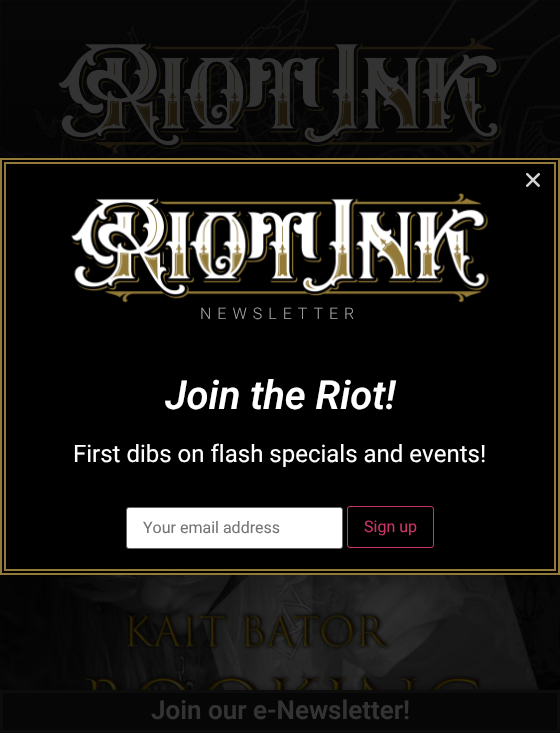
void draw(SkCanvas* c) {
SkPaint p;
p.setAntiAlias(true);
auto F=[&](const char* family, int weight, float size, bool italic = false){SkFontStyle style(weight, SkFontStyle::kNormal_Width,italic ? SkFontStyle::kItalic_Slant : SkFontStyle::kUpright_Slant);SkFont result(fontMgr->matchFamilyStyle(family, style), size);result.setSubpixel(true);return result;};
auto T=[&](const char* s, float x, float y, const SkFont& font){c->drawString(s, x, y, font, p);};
auto L=[&](const char* s, float x, float y, const SkFont& font, const SkPaint& ink, float letter, float word){std::vector<SkGlyphID> glyphs(font.countText(s, strlen(s), SkTextEncoding::kUTF8));std::vector<float> xs(glyphs.size());font.textToGlyphs(s, strlen(s), SkTextEncoding::kUTF8, glyphs);font.getXPos(glyphs, xs, x);float extra = 0;for (size_t i = 0; i < glyphs.size(); i++) {xs[i] += extra;extra += letter + word * (glyphs[i] == font.unicharToGlyph(' '));}c->drawTextBlob(SkTextBlob::MakeFromPosHGlyphs(glyphs, xs, y, font), 0, 0, ink);};
auto R=[&](float x, float y, float w, float h){c->drawRect(SkRect::MakeXYWH(x, y, w, h), p);};
auto I=[&](const char* path, float x, float y, float w, float h){auto image = SkImages::DeferredFromEncodedData(SkData::MakeFromFileName(path));c->drawImageRect(image, SkRect::MakeXYWH(x, y, w, h), SkSamplingOptions());};
auto P=[&](const char* data, bool evenOdd = false){SkPath result = *SkParsePath::FromSVGString(data);if (evenOdd) result.setFillType(SkPathFillType::kEvenOdd);return result;};
c->clear(0xffffffff);
I("1.png",0,0,560,158);
I("2.png",58,38,444,116);
I("5.png",0,575,560,115);
p.setColor(0x33000000);
p.setMaskFilter(SkMaskFilter::MakeBlur(kNormal_SkBlurStyle, 11.5));
c->drawRect(SkRect::MakeXYWH(-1,163,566,423),p);
p.setMaskFilter(nullptr);
p.setColor(0xff000000);
c->drawRect(SkRect::MakeXYWH(1,159,558,415),p);
p.setStroke(true);
p.setStrokeWidth(2);
p.setColor(0xff937a38);
c->drawRect(SkRect::MakeXYWH(1,159,558,415),p);
c->drawRect(SkRect::MakeXYWH(5,163,550,407),p);
I("3.png",525,172,16,15);
I("4.png",71,193,418,110);
auto f1 = F("Roboto",300,16);
p.setStroke(false);
p.setColor(0xffa0a0a0);
L("NEWSLETTER",200,319,f1,p,6,0);
auto f2 = F("Roboto",600,40,true);
p.setColor(0xffffffff);
T("Join the Riot!",165,409,f2);
auto f3 = F("Roboto",400,24);
T("First dibs on flash specials and events!",73,462,f3);
c->drawRoundRect(SkRect::MakeXYWH(126.5,507.5,216,41),2.5,2.5,p);
p.setStroke(true);
p.setStrokeWidth(1);
p.setColor(0xff666666);
c->drawRoundRect(SkRect::MakeXYWH(126.5,507.5,216,41),2.5,2.5,p);
auto f4 = F("Roboto",400,16);
p.setStroke(false);
p.setColor(0xff757575);
T("Your email address",143,533,f4);
p.setStroke(true);
p.setColor(0xffcc3366);
c->drawRoundRect(SkRect::MakeXYWH(347.5,506.5,86,41),2.5,2.5,p);
p.setStroke(false);
T("Sign up",364,532,f4);
p.setColor(0x80000000);
p.setMaskFilter(SkMaskFilter::MakeBlur(kNormal_SkBlurStyle, 5));
c->drawRoundRect(SkRect::MakeXYWH(0,690,560,43),1,1,p);
p.setMaskFilter(nullptr);
p.setColor(0xff060606);
R(3,693,554,37);
p.setStroke(true);
p.setStrokeWidth(3);
p.setColor(0xff0c0c0c);
c->drawPath(P("M1.5 691.5h557v40h-557z"),p);
auto f5 = F("Roboto",600,26);
p.setStroke(false);
p.setColor(0xff333333);
T("Join our e-Newsletter!",151,719,f5);
}
